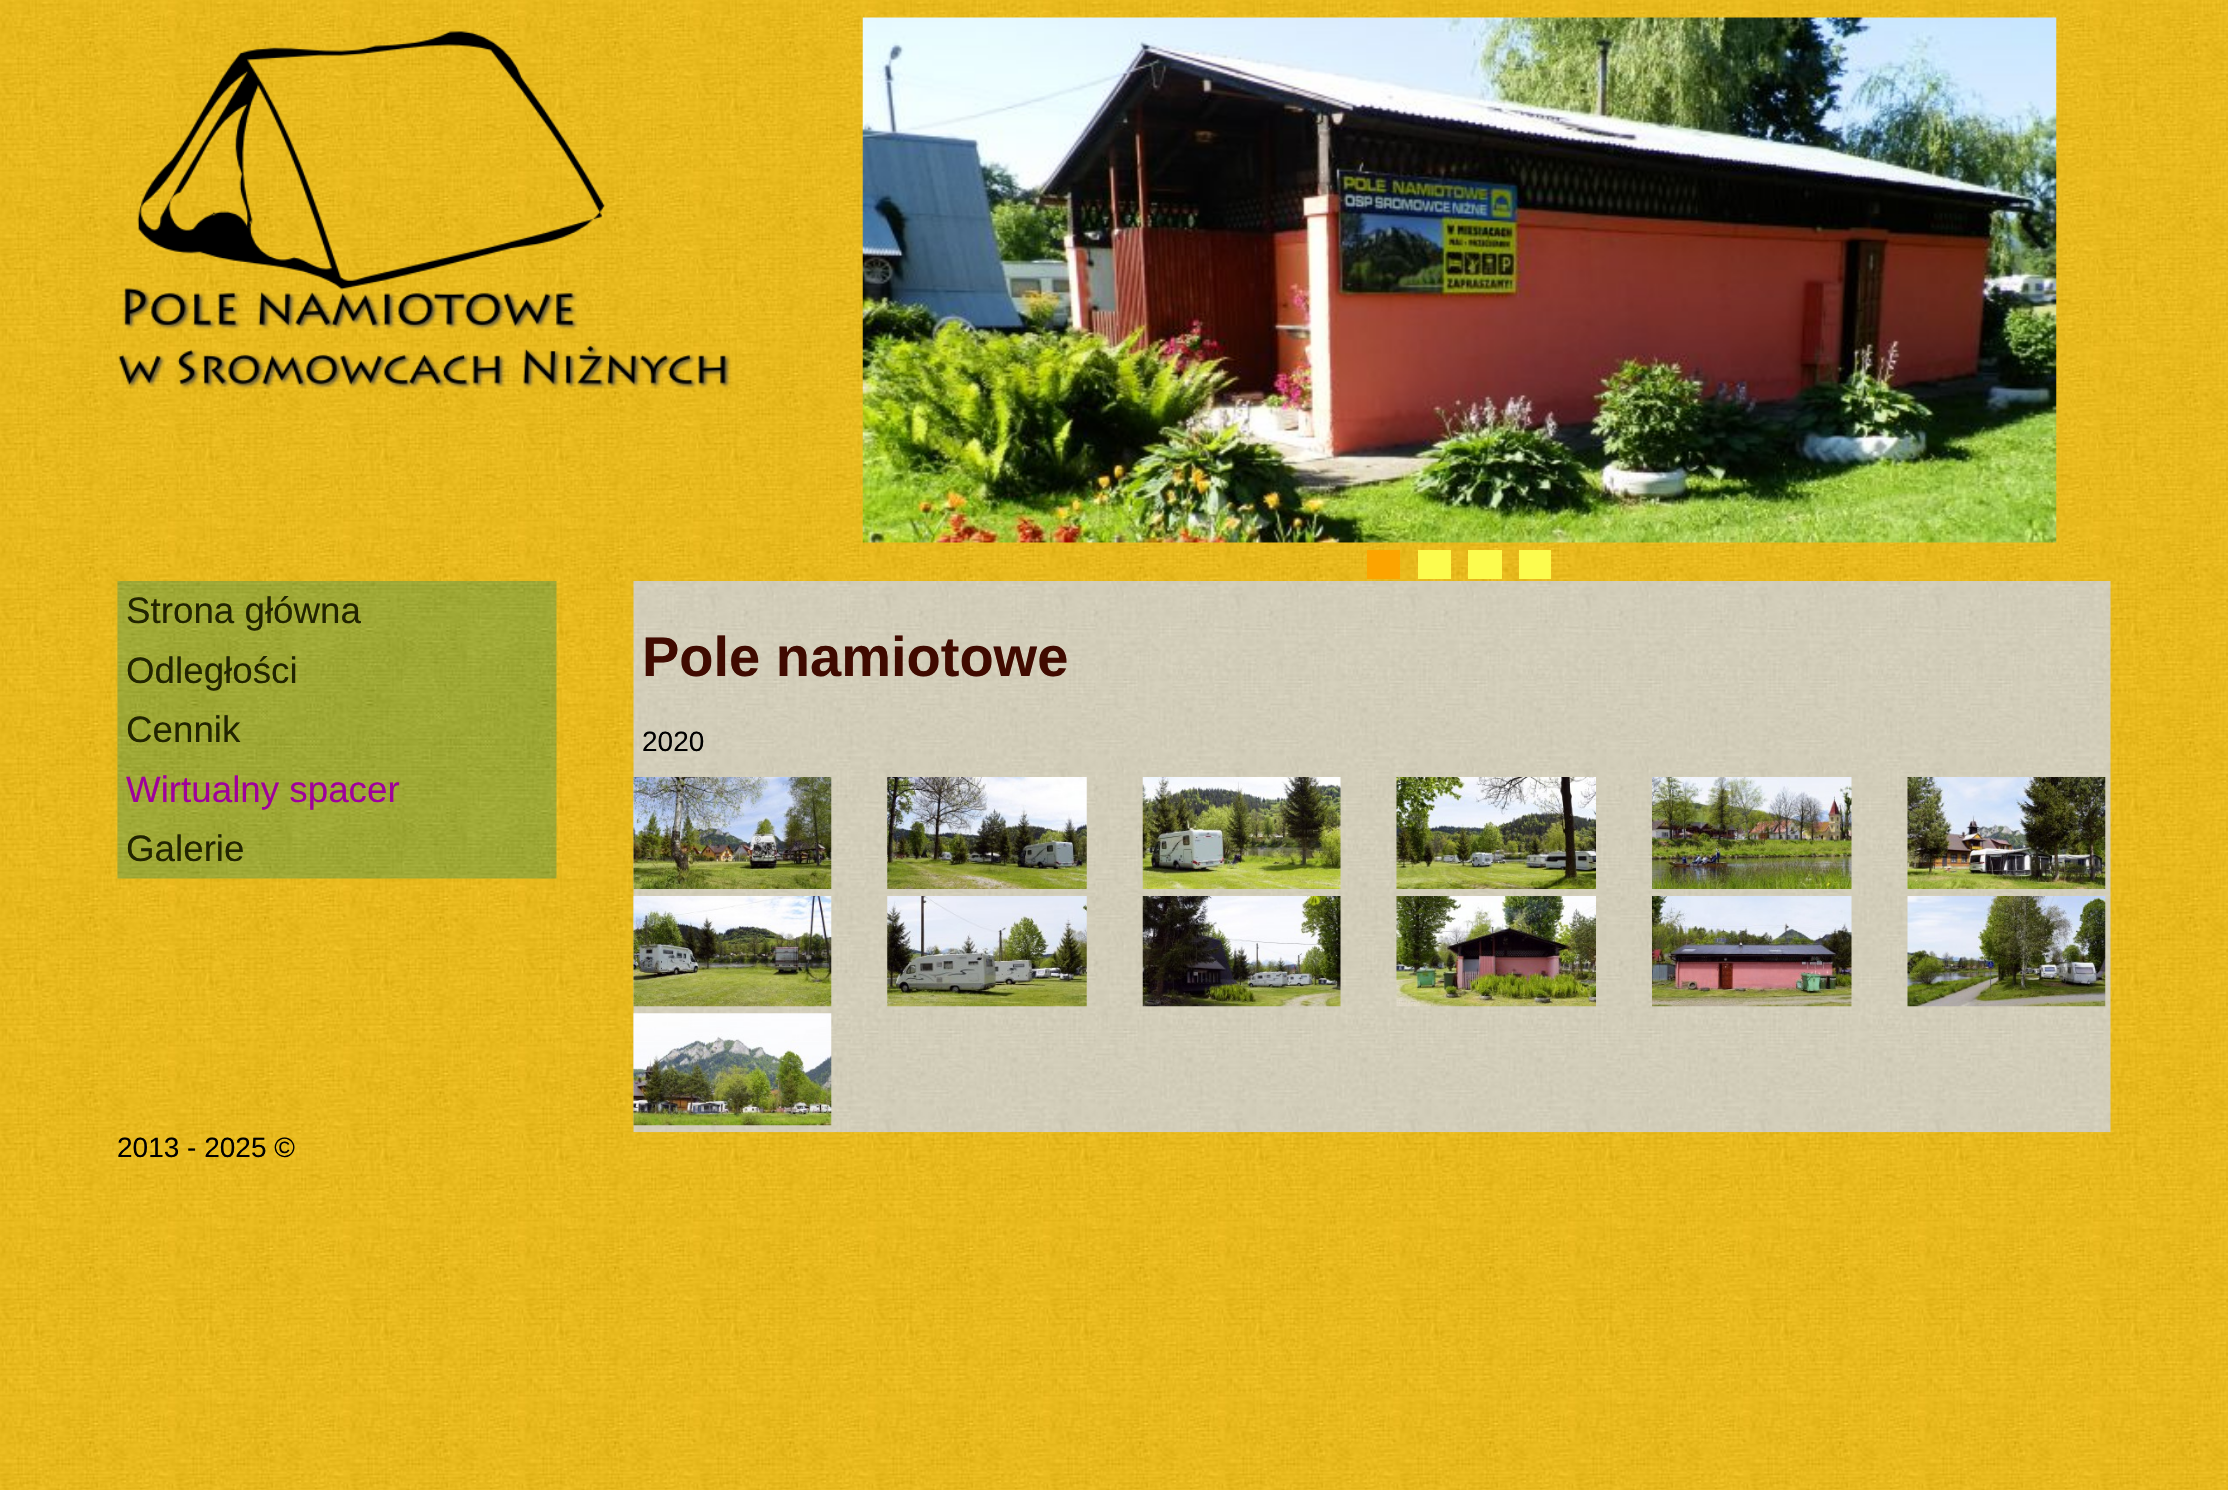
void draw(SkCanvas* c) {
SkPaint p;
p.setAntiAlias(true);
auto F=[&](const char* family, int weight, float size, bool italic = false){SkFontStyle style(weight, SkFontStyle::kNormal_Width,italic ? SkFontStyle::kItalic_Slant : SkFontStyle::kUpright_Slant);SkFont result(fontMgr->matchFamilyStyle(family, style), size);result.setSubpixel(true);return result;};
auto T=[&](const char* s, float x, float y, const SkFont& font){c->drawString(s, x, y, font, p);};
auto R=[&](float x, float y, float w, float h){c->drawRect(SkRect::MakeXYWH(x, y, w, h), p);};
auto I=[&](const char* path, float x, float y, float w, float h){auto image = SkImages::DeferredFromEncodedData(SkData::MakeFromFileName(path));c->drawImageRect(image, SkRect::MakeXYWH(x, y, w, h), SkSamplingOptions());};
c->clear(0xffffffff);
I("1.png",0,0,2228,1490);
I("2.png",118,31,613,358);
I("3.png",862,17,1195,526);
p.setColor(0xfffca400);
R(1367,550,33,29);
p.setColor(0xfffcfc4e);
R(1418,550,33,29);
R(1468,550,34,29);
R(1519,550,32,29);
I("4.png",117,581,440,298);
auto f1 = F("Liberation Sans",400,36.75);
p.setColor(0xff212400);
T("Strona główna",126,623,f1);
T("Odległości",126,683,f1);
T("Cennik",126,742,f1);
p.setColor(0xff9f009b);
T("Wirtualny spacer",126,802,f1);
p.setColor(0xff212400);
T("Galerie",126,861,f1);
I("5.png",633,581,1478,552);
auto f2 = F("Liberation Sans",700,56);
p.setColor(0xff400a00);
T("Pole namiotowe",642,676,f2);
auto f3 = F("Liberation Sans",400,28);
p.setColor(0xff000000);
T("2020",642,751,f3);
I("6.png",633,777,199,112);
I("7.png",887,777,200,112);
I("8.png",1142,777,199,112);
I("9.png",1396,777,200,112);
I("10.png",1652,777,200,112);
I("11.png",1907,777,199,112);
I("12.png",633,896,199,111);
I("13.png",887,896,200,111);
I("14.png",1142,896,199,111);
I("15.png",1396,896,200,111);
I("16.png",1652,896,200,111);
I("17.png",1907,896,199,111);
I("18.png",633,1013,199,113);
T("2013 - 2025 ©",117,1157,f3);
}
